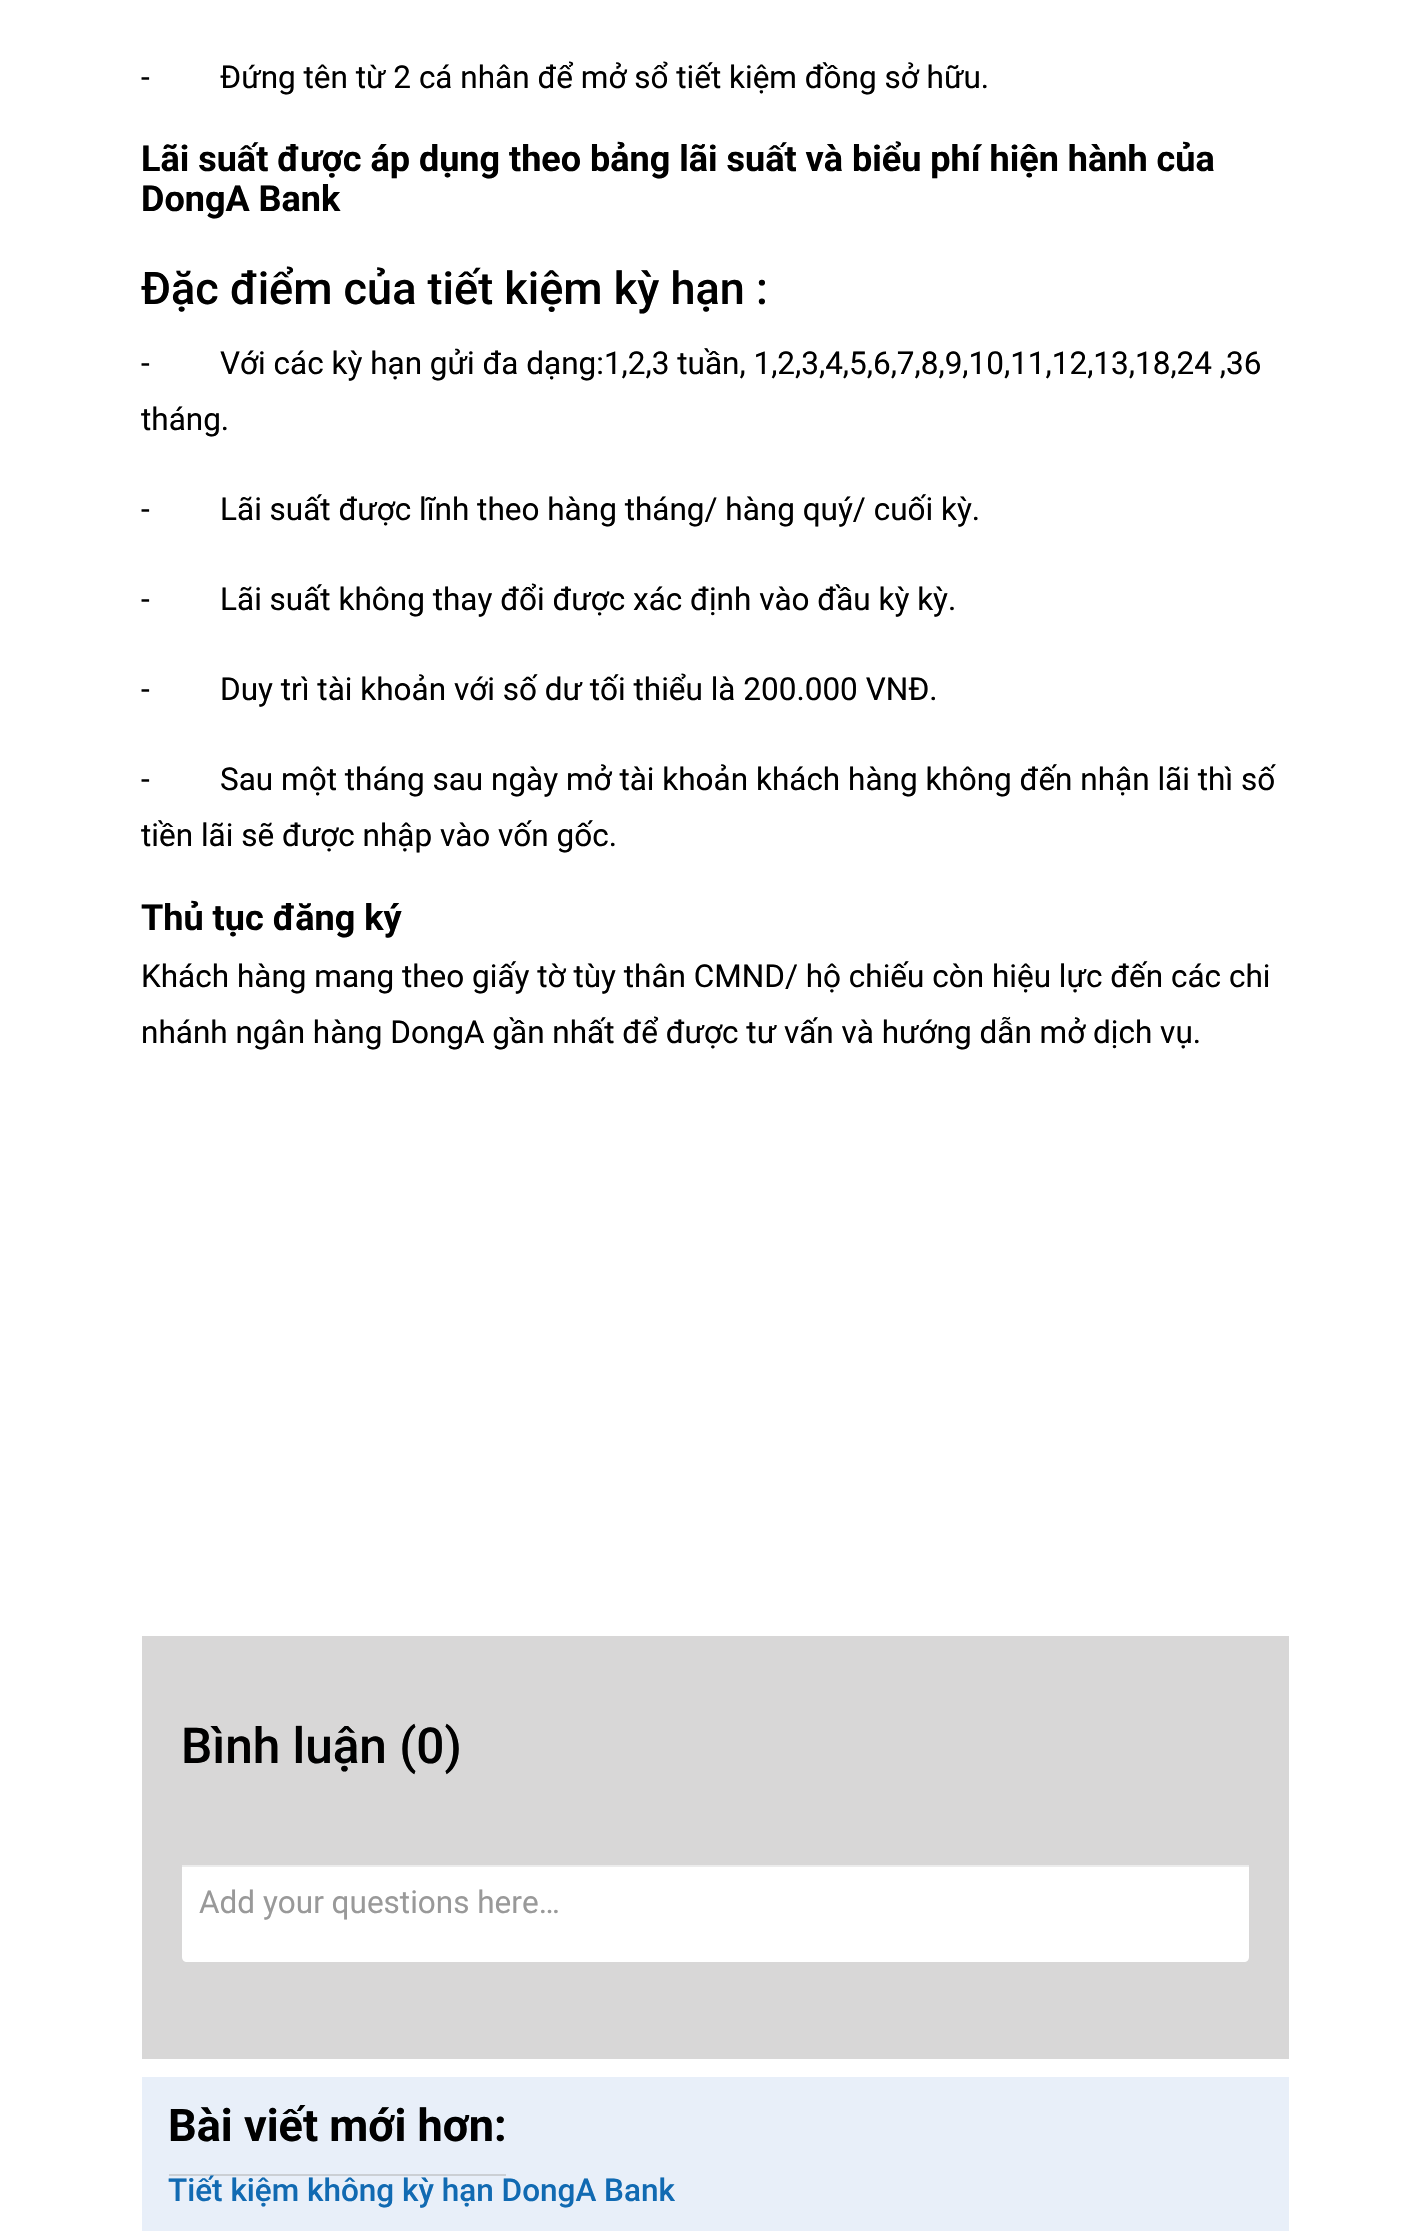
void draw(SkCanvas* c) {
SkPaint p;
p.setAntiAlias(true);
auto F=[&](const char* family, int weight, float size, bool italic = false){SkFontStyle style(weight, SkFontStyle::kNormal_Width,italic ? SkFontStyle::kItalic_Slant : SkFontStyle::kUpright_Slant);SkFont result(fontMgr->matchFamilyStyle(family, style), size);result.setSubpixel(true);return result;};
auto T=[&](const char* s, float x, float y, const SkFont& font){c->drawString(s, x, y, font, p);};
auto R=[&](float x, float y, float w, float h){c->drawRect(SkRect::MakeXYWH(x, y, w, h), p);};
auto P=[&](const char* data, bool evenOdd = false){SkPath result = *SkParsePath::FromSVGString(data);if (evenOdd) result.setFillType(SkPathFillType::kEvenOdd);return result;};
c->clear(0xffffffff);
auto f1 = F("Roboto",400,31.5);
p.setColor(0xff000000);
T("-         Đứng tên từ 2 cá nhân để mở sổ tiết kiệm đồng sở hữu.",141,88,f1);
auto f2 = F("Roboto",700,36);
T("Lãi suất được áp dụng theo bảng lãi suất và biểu phí hiện hành của",141,171,f2);
T("DongA Bank",141,211,f2);
auto f3 = F("Roboto",500,45);
T("Đặc điểm của tiết kiệm kỳ hạn :",141,304,f3);
T("-         Với các kỳ hạn gửi đa dạng:1,2,3 tuần, 1,2,3,4,5,6,7,8,9,10,11,12,13,18,24 ,36",141,374,f1);
T("tháng.",141,430,f1);
T("-         Lãi suất được lĩnh theo hàng tháng/ hàng quý/ cuối kỳ.",141,520,f1);
T("-         Lãi suất không thay đổi được xác định vào đầu kỳ kỳ.",141,610,f1);
T("-         Duy trì tài khoản với số dư tối thiểu là 200.000 VNĐ.",141,700,f1);
T("-         Sau một tháng sau ngày mở tài khoản khách hàng không đến nhận lãi thì số",141,790,f1);
T("tiền lãi sẽ được nhập vào vốn gốc.",141,846,f1);
T("Thủ tục đăng ký",141,930,f2);
T("Khách hàng mang theo giấy tờ tùy thân CMND/ hộ chiếu còn hiệu lực đến các chi",141,987,f1);
T("nhánh ngân hàng DongA gần nhất để được tư vấn và hướng dẫn mở dịch vụ.",141,1043,f1);
p.setColor(0xffd8d7d7);
R(142,1636,1147,423);
auto f4 = F("Roboto",500,49.5);
p.setColor(0xff000000);
T("Bình luận (0)",181,1763,f4);
p.setColor(0xffffffff);
c->drawPath(P("M182 1865h1067v92c0 3-2 5-5 5h-1057c-3 0-5-2-5-5z"),p);
p.setColor(0xffececec);
R(182,1865,1067,2);
p.setColor(0xff999999);
T("Add your questions here…",199,1913,f1);
p.setColor(0xffe8eff9);
R(142,2077,1147,154);
auto f5 = F("Roboto",700,45);
p.setColor(0xff000000);
T("Bài viết mới hơn:",168,2141,f5);
p.setColor(0xffcbcfd4);
R(169,2174,337,2);
auto f6 = F("Roboto",500,31.5);
p.setColor(0xff116ab2);
T("Tiết kiệm không kỳ hạn DongA Bank",168,2201,f6);
}
